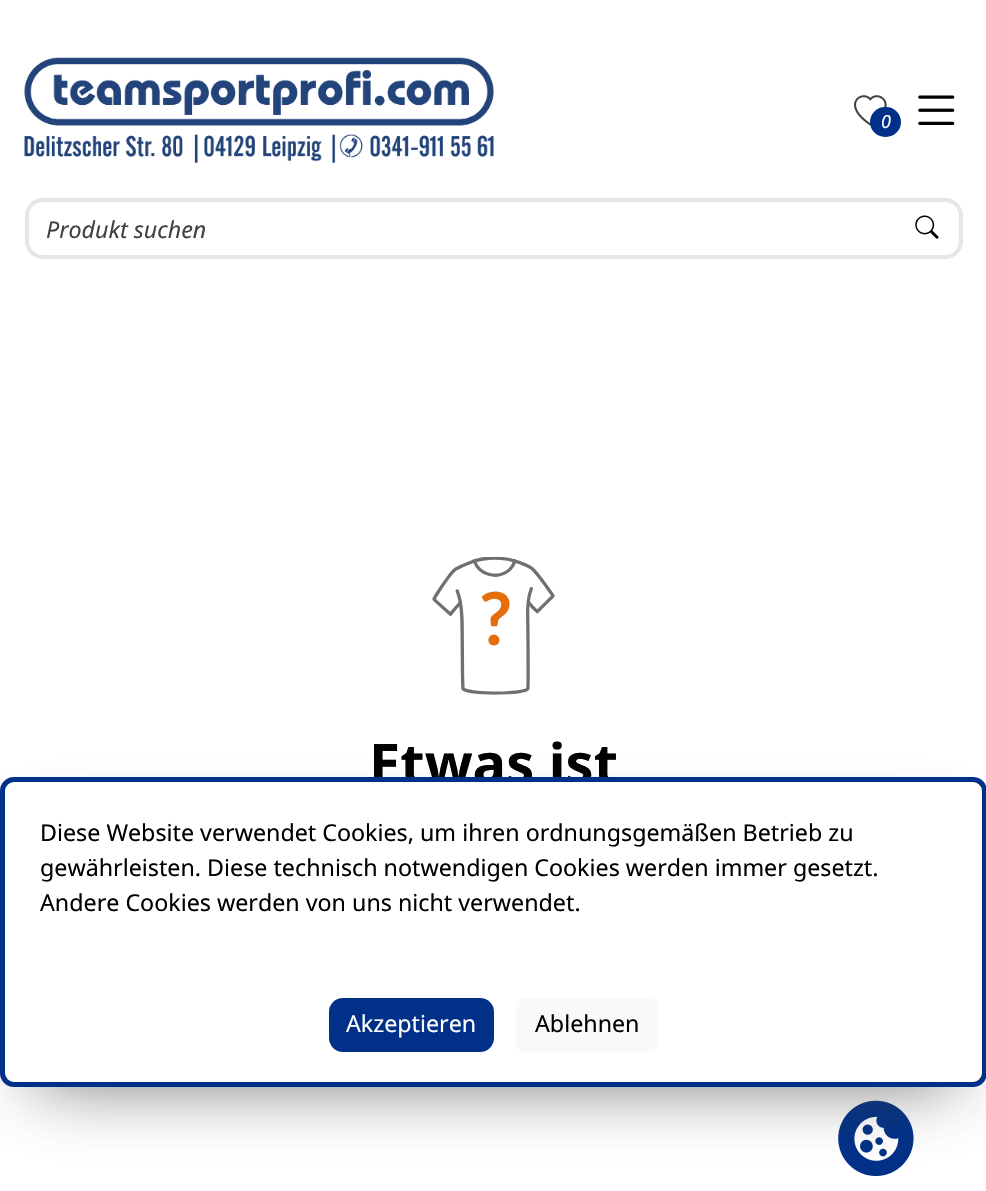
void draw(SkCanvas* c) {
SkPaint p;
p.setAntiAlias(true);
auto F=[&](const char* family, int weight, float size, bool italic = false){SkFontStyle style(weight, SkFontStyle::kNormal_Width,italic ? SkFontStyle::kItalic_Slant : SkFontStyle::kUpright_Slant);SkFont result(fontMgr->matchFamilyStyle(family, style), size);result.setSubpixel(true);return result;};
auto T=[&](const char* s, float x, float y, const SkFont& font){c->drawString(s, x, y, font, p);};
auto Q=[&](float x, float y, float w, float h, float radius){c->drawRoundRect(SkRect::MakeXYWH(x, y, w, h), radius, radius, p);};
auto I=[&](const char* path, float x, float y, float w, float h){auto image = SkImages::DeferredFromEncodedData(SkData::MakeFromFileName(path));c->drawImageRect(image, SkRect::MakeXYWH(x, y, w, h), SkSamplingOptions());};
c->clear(0xffffffff);
I("1.png",24,57,470,106);
I("2.png",854,95,33,31);
p.setColor(0xff003087);
Q(870,107,31,30,15);
auto f1 = F("Noto Sans",400,18,true);
p.setColor(0xffffffff);
T("0",881,128,f1);
I("3.png",918,95,37,30);
p.setStroke(true);
p.setStrokeWidth(4);
p.setColor(0xffe6e6e6);
c->drawRoundRect(SkRect::MakeXYWH(27,200,934,57),16,16,p);
auto f2 = F("Noto Sans",400,23.25,true);
p.setStroke(false);
p.setColor(0xff414141);
T("Produkt suchen",46,238,f2);
I("4.png",915,215,24,24);
I("5.png",432,557,123,138);
auto f3 = F("Noto Sans",700,56);
p.setColor(0xff000000);
T("Etwas ist",369,784,f3);
I("6.png",838,1100,76,76);
p.setColor(0xd1414141);
p.setMaskFilter(SkMaskFilter::MakeBlur(kNormal_SkBlurStyle, 35));
c->drawRect(SkRect::MakeXYWH(35,840,917,240),p);
p.setMaskFilter(nullptr);
p.setColor(0xffffffff);
c->drawRoundRect(SkRect::MakeXYWH(2.5,779.5,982,305),11.5,11.5,p);
p.setStroke(true);
p.setStrokeWidth(5);
p.setColor(0xff003087);
c->drawRoundRect(SkRect::MakeXYWH(2.5,779.5,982,305),11.5,11.5,p);
auto f4 = F("Noto Sans",400,23.25);
p.setStroke(false);
p.setColor(0xff000000);
T("Diese Website verwendet Cookies, um ihren ordnungsgemäßen Betrieb zu",40,841,f4);
T("gewährleisten. Diese technisch notwendigen Cookies werden immer gesetzt.",40,876,f4);
T("Andere Cookies werden von uns nicht verwendet.",40,911,f4);
p.setColor(0xff003087);
Q(329,998,165,54,14);
p.setColor(0xffffffff);
T("Akzeptieren",346,1032,f4);
p.setColor(0xfff8f9fa);
Q(516,998,142,54,9);
p.setColor(0xff000000);
T("Ablehnen",535,1032,f4);
}
